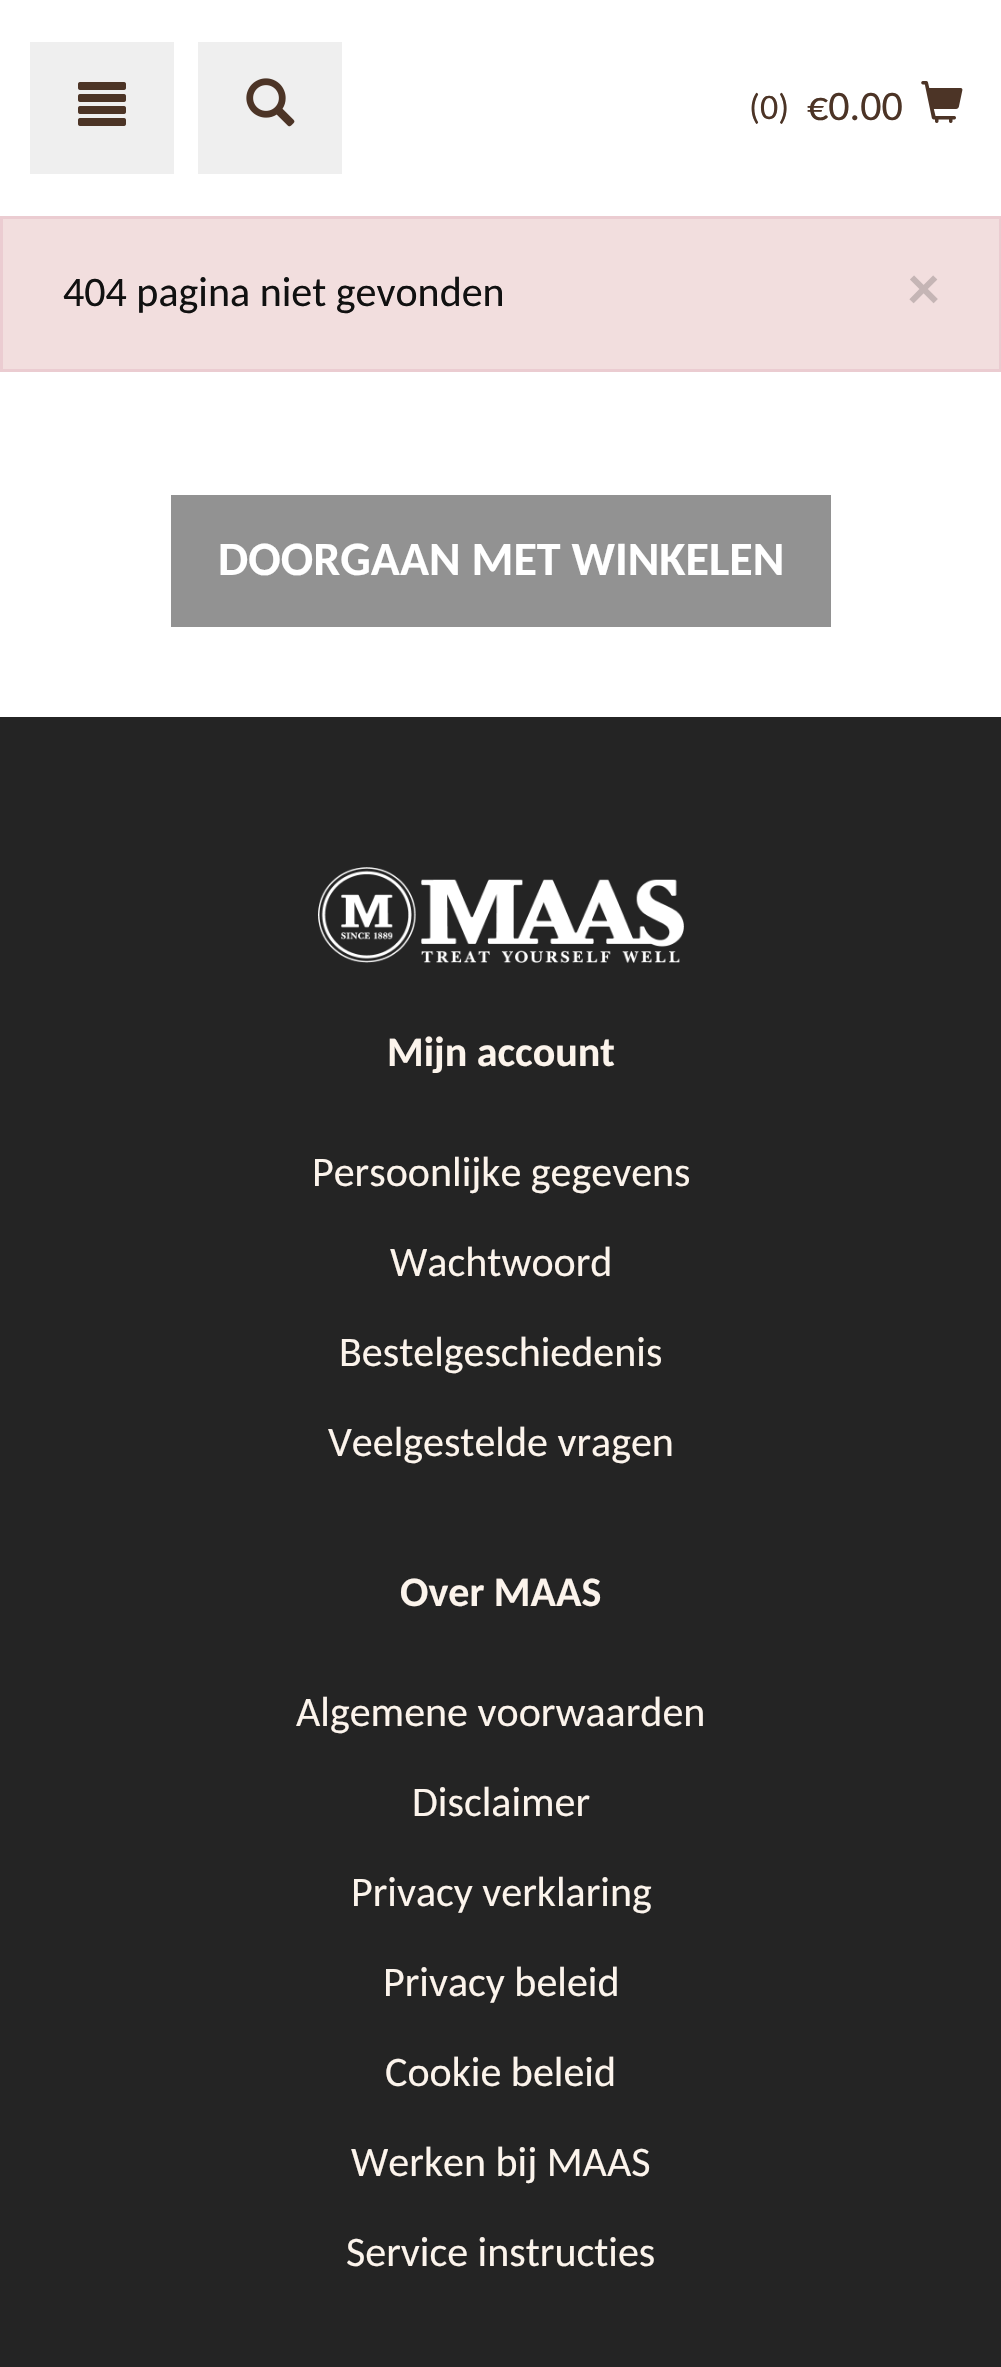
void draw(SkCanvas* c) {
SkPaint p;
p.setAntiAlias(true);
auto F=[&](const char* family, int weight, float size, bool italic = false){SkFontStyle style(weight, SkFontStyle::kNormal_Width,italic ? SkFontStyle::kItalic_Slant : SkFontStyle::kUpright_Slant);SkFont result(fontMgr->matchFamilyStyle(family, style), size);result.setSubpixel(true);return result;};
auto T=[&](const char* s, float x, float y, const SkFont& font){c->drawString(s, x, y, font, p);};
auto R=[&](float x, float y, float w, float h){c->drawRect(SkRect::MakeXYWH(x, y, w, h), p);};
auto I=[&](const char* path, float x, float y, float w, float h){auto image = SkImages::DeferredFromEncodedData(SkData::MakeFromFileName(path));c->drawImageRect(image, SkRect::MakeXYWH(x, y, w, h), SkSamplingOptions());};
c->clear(0xffffffff);
p.setColor(0xffefefef);
R(30,42,144,132);
I("1.png",78,82,48,44);
R(198,42,144,132);
I("2.png",246,78,49,49);
auto f1 = F("Carlito",400,36);
p.setColor(0xff4c3426);
T("(0)",749,119,f1);
auto f2 = F("Carlito",400,42);
T("€0.00",807,120,f2);
I("3.png",921,81,42,42);
p.setColor(0xfff2dede);
c->drawRect(SkRect::MakeXYWH(1.5,217.5,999,153),p);
p.setStroke(true);
p.setStrokeWidth(3);
p.setColor(0xffebccd1);
c->drawRect(SkRect::MakeXYWH(1.5,217.5,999,153),p);
p.setStroke(false);
p.setColor(0xff111111);
T("404 pagina niet gevonden",63,306,f2);
auto f3 = F("Carlito",700,63);
p.setColor(0xffc5b5b5);
T("×",908,309,f3);
p.setColor(0xff929292);
R(171,495,660,132);
auto f4 = F("Carlito",700,48);
p.setColor(0xffffffff);
T("DOORGAAN MET WINKELEN",218,575,f4);
p.setColor(0xff242424);
R(0,717,1001,1650);
I("4.png",318,867,366,96);
auto f5 = F("Carlito",700,42);
p.setColor(0xfffcf4ec);
T("Mijn account",387,1066,f5);
T("Persoonlijke gegevens",312,1186,f2);
T("Wachtwoord",390,1276,f2);
T("Bestelgeschiedenis",339,1366,f2);
T("Veelgestelde vragen",328,1456,f2);
T("Over MAAS",400,1606,f5);
T("Algemene voorwaarden",296,1726,f2);
T("Disclaimer",412,1816,f2);
T("Privacy verklaring",351,1906,f2);
T("Privacy beleid",383,1996,f2);
T("Cookie beleid",385,2086,f2);
T("Werken bij MAAS",351,2176,f2);
T("Service instructies",346,2266,f2);
}
